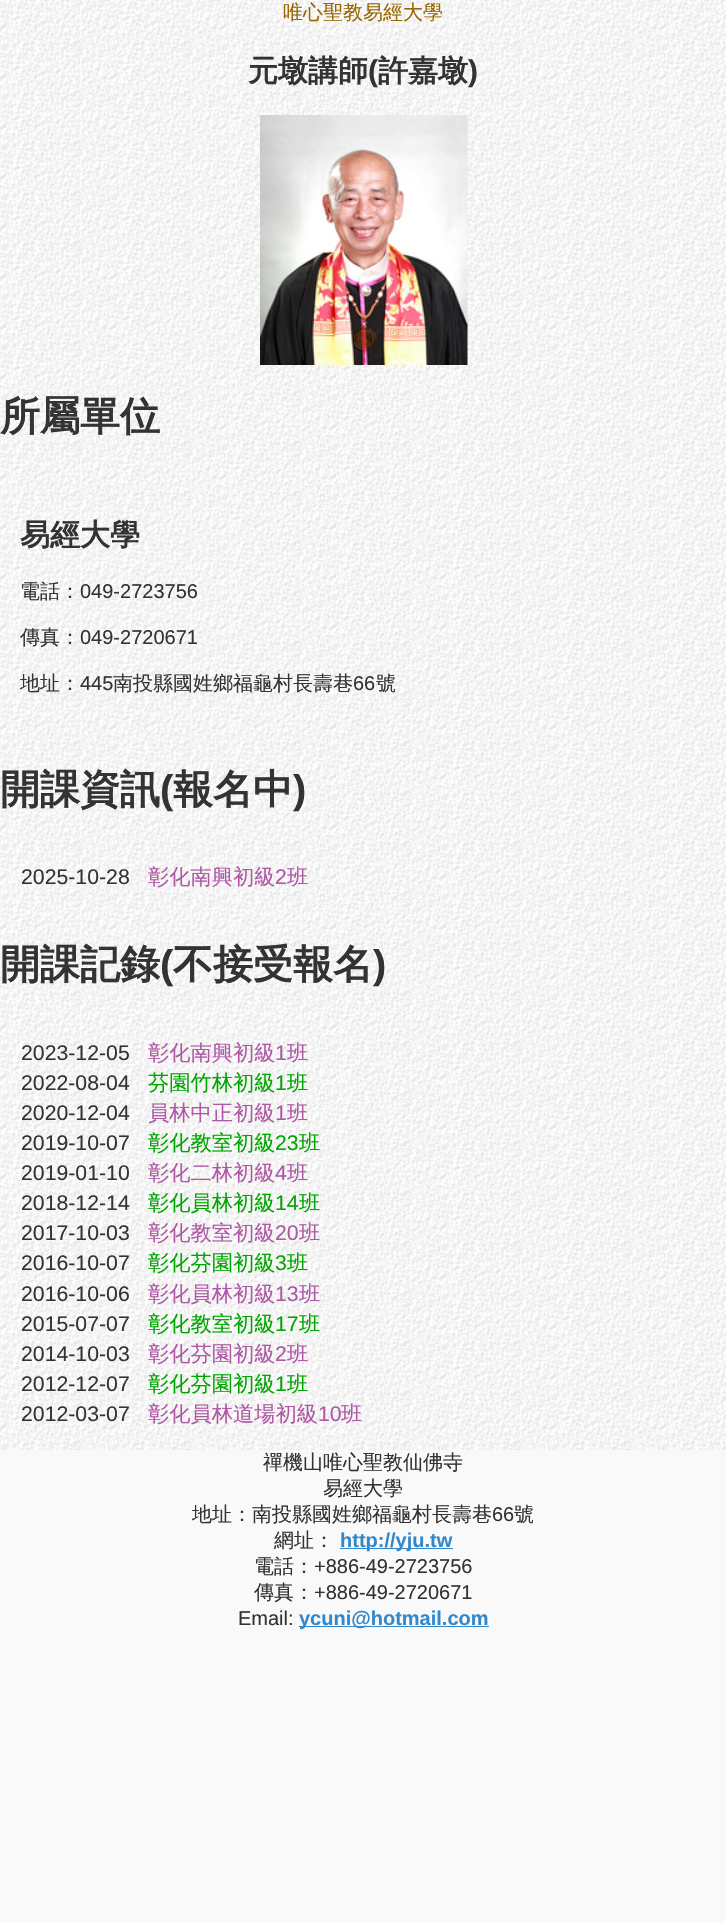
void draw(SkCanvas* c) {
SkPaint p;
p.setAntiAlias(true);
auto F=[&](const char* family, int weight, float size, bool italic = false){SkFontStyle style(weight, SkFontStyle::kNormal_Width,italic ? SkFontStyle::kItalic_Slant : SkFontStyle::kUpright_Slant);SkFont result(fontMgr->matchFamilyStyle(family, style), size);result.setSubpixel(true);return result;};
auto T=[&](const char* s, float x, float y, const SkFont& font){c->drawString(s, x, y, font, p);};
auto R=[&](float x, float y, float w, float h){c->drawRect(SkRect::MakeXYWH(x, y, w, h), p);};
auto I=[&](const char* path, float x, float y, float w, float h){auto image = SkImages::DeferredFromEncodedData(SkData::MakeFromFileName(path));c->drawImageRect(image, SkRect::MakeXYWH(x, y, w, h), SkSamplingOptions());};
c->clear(0xfff9f9f9);
I("1.png",0,0,726,1450);
auto f1 = F("WenQuanYi Zen Hei",500,20);
p.setColor(0xff996600);
T("唯心聖教易經大學",283,19,f1);
auto f2 = F("WenQuanYi Zen Hei",700,30);
p.setColor(0xff333333);
T("元墩講師",248,81,f2);
auto f3 = F("Liberation Sans",700,30);
T("(",368,81,f3);
T("許嘉墩",378,81,f2);
T(")",468,81,f3);
I("2.png",260,115,208,250);
auto f4 = F("WenQuanYi Zen Hei",700,40);
T("所屬單位",0,430,f4);
T("易經大學",20,545,f2);
T("電話：",20,598,f1);
auto f5 = F("Liberation Sans",400,20);
T("049-2723756",80,598,f5);
T("傳真：",20,644,f1);
T("049-2720671",80,644,f5);
T("地址：",20,690,f1);
T("445",80,690,f5);
T("南投縣國姓鄉福龜村長壽巷",113,690,f1);
T("66",353,690,f5);
T("號",376,690,f1);
T("開課資訊",0,803,f4);
auto f6 = F("Liberation Sans",700,40);
T("(",160,803,f6);
T("報名中",173,803,f4);
T(")",293,803,f6);
auto f7 = F("Liberation Sans",400,21.25);
T("2025-10-28",21,884,f7);
auto f8 = F("WenQuanYi Zen Hei",500,21.25);
p.setColor(0xffae57a4);
T("彰化南興初級",148,884,f8);
T("2",275,884,f7);
T("班",287,884,f8);
p.setColor(0xff333333);
T("開課記錄",0,978,f4);
T("(",160,978,f6);
T("不接受報名",173,978,f4);
T(")",373,978,f6);
T("2023-12-05",21,1060,f7);
p.setColor(0xffae57a4);
T("彰化南興初級",148,1060,f8);
T("1",275,1060,f7);
T("班",287,1060,f8);
p.setColor(0xff333333);
T("2022-08-04",21,1090,f7);
p.setColor(0xff00a600);
T("芬園竹林初級",148,1090,f8);
T("1",275,1090,f7);
T("班",287,1090,f8);
p.setColor(0xff333333);
T("2020-12-04",21,1120,f7);
p.setColor(0xffae57a4);
T("員林中正初級",148,1120,f8);
T("1",275,1120,f7);
T("班",287,1120,f8);
p.setColor(0xff333333);
T("2019-10-07",21,1150,f7);
p.setColor(0xff00a600);
T("彰化教室初級",148,1150,f8);
T("23",275,1150,f7);
T("班",299,1150,f8);
p.setColor(0xff333333);
T("2019-01-10",21,1180,f7);
p.setColor(0xffae57a4);
T("彰化二林初級",148,1180,f8);
T("4",275,1180,f7);
T("班",287,1180,f8);
p.setColor(0xff333333);
T("2018-12-14",21,1210,f7);
p.setColor(0xff00a600);
T("彰化員林初級",148,1210,f8);
T("14",275,1210,f7);
T("班",299,1210,f8);
p.setColor(0xff333333);
T("2017-10-03",21,1240,f7);
p.setColor(0xffae57a4);
T("彰化教室初級",148,1240,f8);
T("20",275,1240,f7);
T("班",299,1240,f8);
p.setColor(0xff333333);
T("2016-10-07",21,1270,f7);
p.setColor(0xff00a600);
T("彰化芬園初級",148,1270,f8);
T("3",275,1270,f7);
T("班",287,1270,f8);
p.setColor(0xff333333);
T("2016-10-06",21,1301,f7);
p.setColor(0xffae57a4);
T("彰化員林初級",148,1301,f8);
T("13",275,1301,f7);
T("班",299,1301,f8);
p.setColor(0xff333333);
T("2015-07-07",21,1331,f7);
p.setColor(0xff00a600);
T("彰化教室初級",148,1331,f8);
T("17",275,1331,f7);
T("班",299,1331,f8);
p.setColor(0xff333333);
T("2014-10-03",21,1361,f7);
p.setColor(0xffae57a4);
T("彰化芬園初級",148,1361,f8);
T("2",275,1361,f7);
T("班",287,1361,f8);
p.setColor(0xff333333);
T("2012-12-07",21,1391,f7);
p.setColor(0xff00a600);
T("彰化芬園初級",148,1391,f8);
T("1",275,1391,f7);
T("班",287,1391,f8);
p.setColor(0xff333333);
T("2012-03-07",21,1421,f7);
p.setColor(0xffae57a4);
T("彰化員林道場初級",148,1421,f8);
T("10",318,1421,f7);
T("班",341,1421,f8);
p.setColor(0xff333333);
T("禪機山唯心聖教仙佛寺",263,1469,f1);
T("易經大學",323,1495,f1);
T("地址：南投縣國姓鄉福龜村長壽巷",192,1521,f1);
T("66",492,1521,f5);
T("號",514,1521,f1);
T("網址：",274,1547,f1);
p.setColor(0xff3388cc);
R(340,1548,113,1);
auto f9 = F("Liberation Sans",700,20);
T("http://yju.tw",340,1547,f9);
p.setColor(0xff333333);
T("電話：",254,1573,f1);
T("+886-49-2723756",314,1573,f5);
T("傳真：",254,1599,f1);
T("+886-49-2720671",314,1599,f5);
T("Email:",238,1625,f5);
p.setColor(0xff3388cc);
R(299,1626,190,1);
T("ycuni@hotmail.com",299,1625,f9);
}
